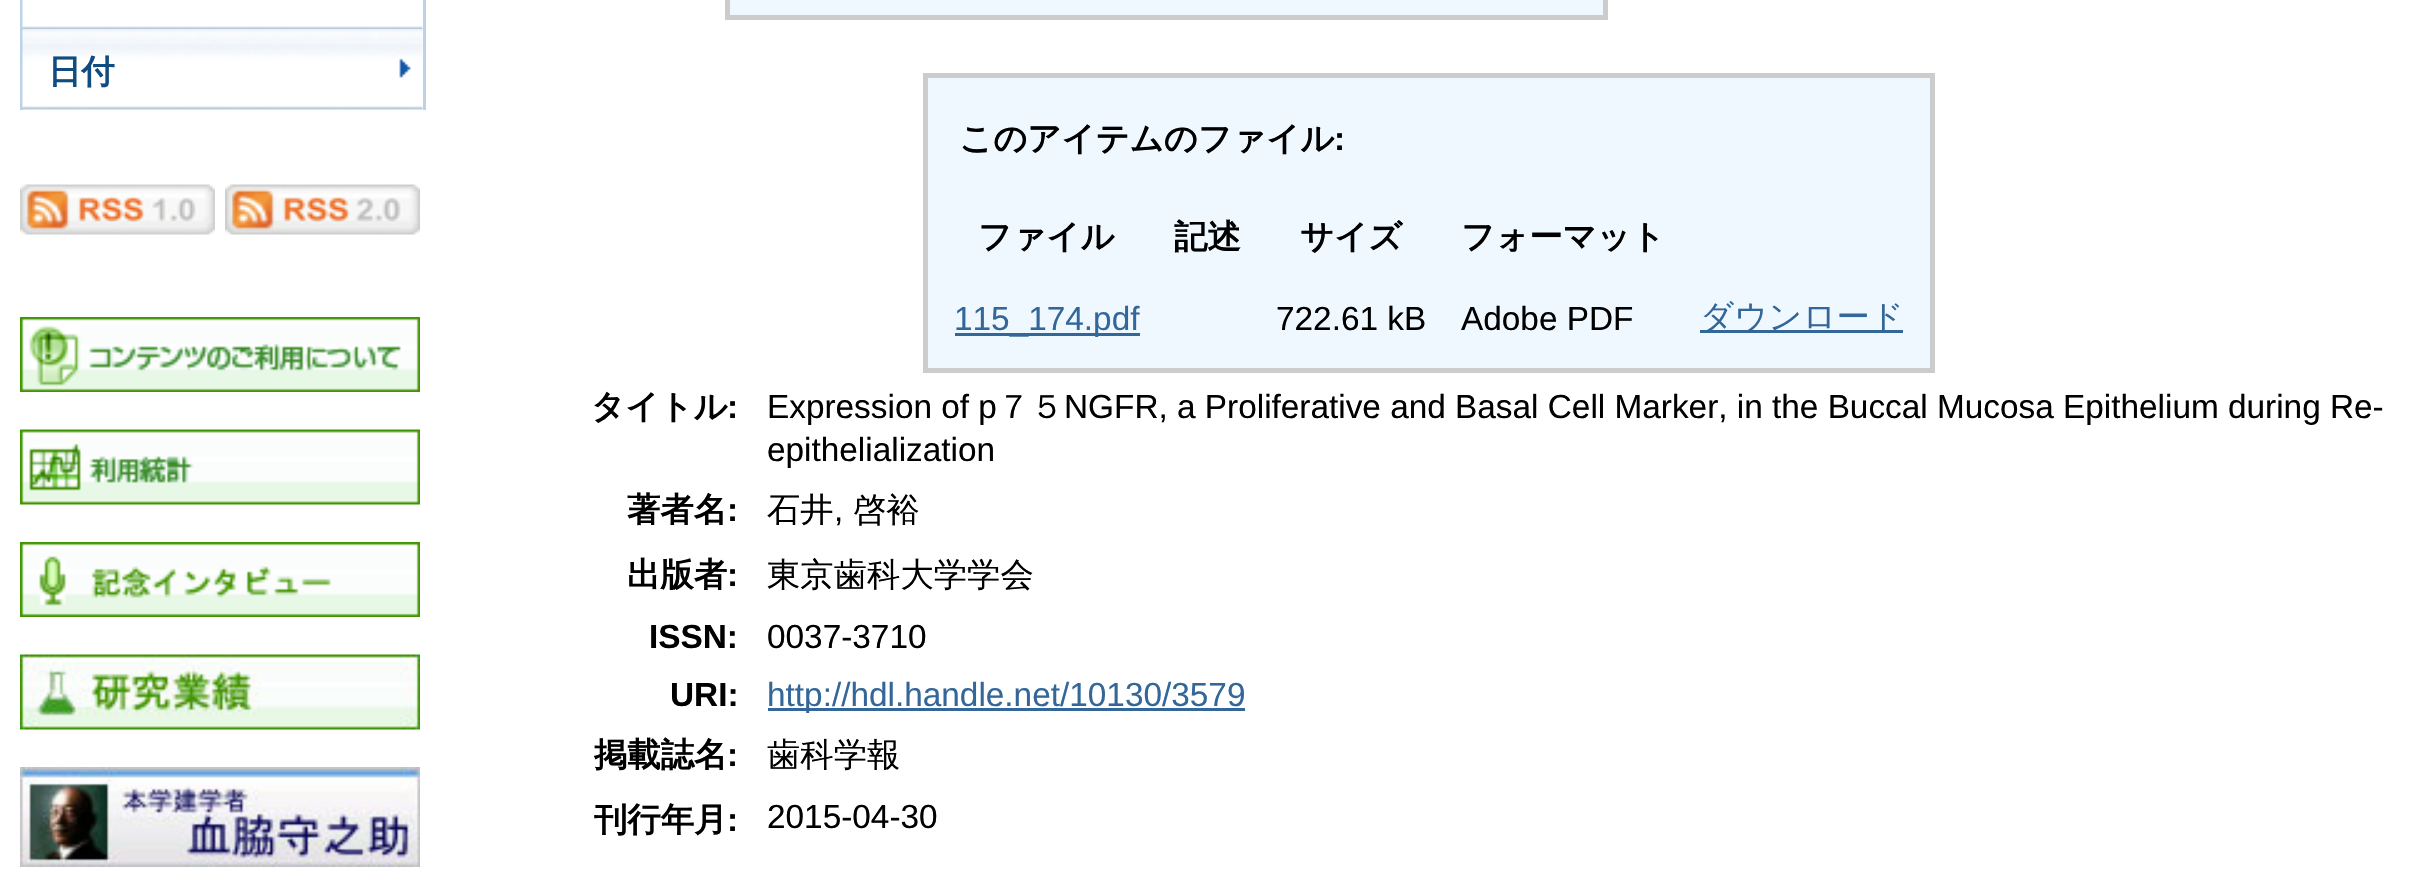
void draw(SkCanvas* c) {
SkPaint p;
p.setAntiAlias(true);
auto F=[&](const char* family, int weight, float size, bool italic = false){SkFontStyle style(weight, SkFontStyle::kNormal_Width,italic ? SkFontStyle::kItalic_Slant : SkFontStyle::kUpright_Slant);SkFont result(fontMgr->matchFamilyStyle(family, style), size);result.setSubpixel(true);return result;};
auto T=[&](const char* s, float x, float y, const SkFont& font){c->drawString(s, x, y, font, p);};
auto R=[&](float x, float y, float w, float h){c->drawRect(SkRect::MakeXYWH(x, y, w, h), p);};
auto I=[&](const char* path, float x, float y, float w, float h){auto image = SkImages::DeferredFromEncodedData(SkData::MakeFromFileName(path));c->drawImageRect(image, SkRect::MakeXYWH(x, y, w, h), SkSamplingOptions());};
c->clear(0xffffffff);
p.setColor(0xffbcd2e6);
R(423,0,3,110);
R(20,0,3,110);
I("1.png",22,0,401,30);
I("2.png",22,29,401,81);
auto f1 = F("WenQuanYi Zen Hei",700,33.35);
p.setColor(0xff104c7f);
T("日付",48,83,f1);
I("3.png",20,184,195,51);
I("4.png",225,184,195,51);
I("5.png",20,317,400,75);
I("6.png",20,429,400,76);
I("7.png",20,542,400,75);
I("8.png",20,654,400,76);
I("9.png",20,767,400,100);
p.setColor(0xffcccccc);
R(725,0,883,20);
p.setColor(0xfff0f8ff);
R(730,0,873,15);
p.setColor(0xffcccccc);
R(923,73,1012,300);
p.setColor(0xfff0f8ff);
R(928,78,1002,290);
p.setColor(0xff000000);
T("このアイテムのファイル",959,150,f1);
auto f2 = F("Liberation Sans",700,33.35);
T(":",1334,150,f2);
T("ファイル",978,248,f1);
T("記述",1174,248,f1);
T("サイズ",1300,248,f1);
T("フォーマット",1461,248,f1);
p.setColor(0xff336699);
R(955,333,185,3);
auto f3 = F("Liberation Sans",400,33.35);
T("115_174.pdf",954,330,f3);
p.setColor(0xff000000);
T("722.61 kB",1276,330,f3);
T("Adobe PDF",1461,330,f3);
p.setColor(0xff336699);
R(1700,330,203,3);
auto f4 = F("WenQuanYi Zen Hei",500,33.35);
T("ダウンロード",1700,328,f4);
p.setColor(0xff000000);
T("タイトル",591,418,f1);
T(":",727,418,f2);
T("Expression of p",767,418,f3);
T("７５",997,418,f4);
T("NGFR, a Proliferative and Basal Cell Marker, in the Buccal Mucosa Epithelium during Re-",1064,418,f3);
T("epithelialization",767,461,f3);
T("著者名",627,521,f1);
T(":",727,521,f2);
T("石井",767,521,f4);
T(",",834,521,f3);
T("啓裕",853,521,f4);
T("出版者",627,586,f1);
T(":",727,586,f2);
T("東京歯科大学学会",767,586,f4);
T("ISSN:",649,648,f2);
T("0037-3710",767,648,f3);
T("URI:",670,706,f2);
p.setColor(0xff336699);
R(768,708,477,3);
T("http://hdl.handle.net/10130/3579",767,706,f3);
p.setColor(0xff000000);
T("掲載誌名",594,766,f1);
T(":",727,766,f2);
T("歯科学報",767,766,f4);
T("刊行年月",594,831,f1);
T(":",727,831,f2);
T("2015-04-30",767,828,f3);
}
